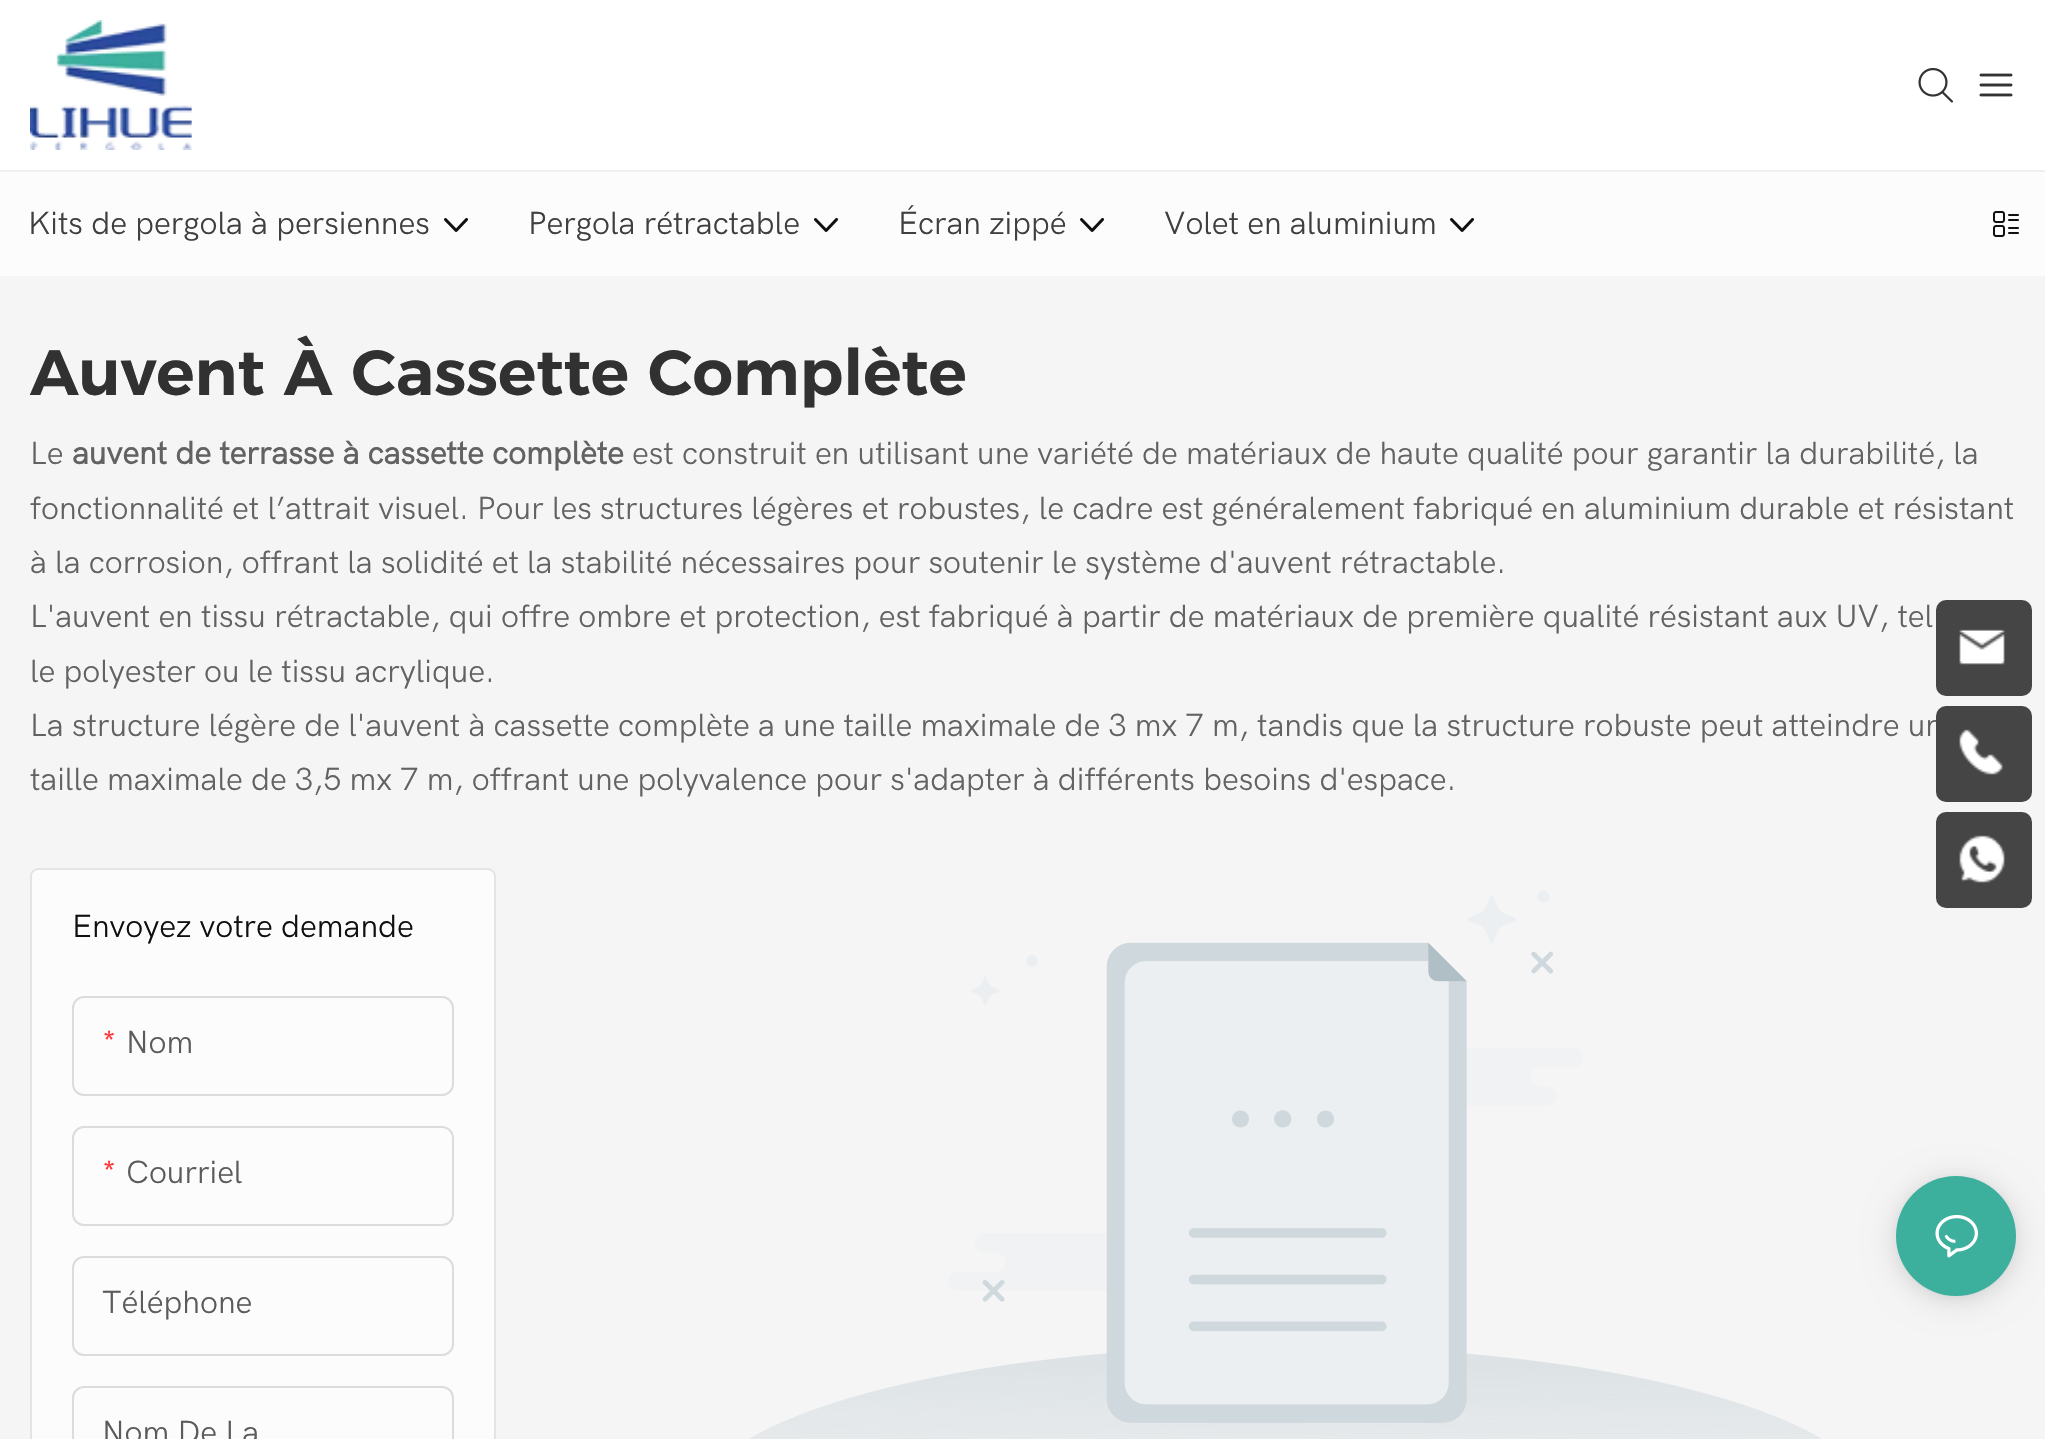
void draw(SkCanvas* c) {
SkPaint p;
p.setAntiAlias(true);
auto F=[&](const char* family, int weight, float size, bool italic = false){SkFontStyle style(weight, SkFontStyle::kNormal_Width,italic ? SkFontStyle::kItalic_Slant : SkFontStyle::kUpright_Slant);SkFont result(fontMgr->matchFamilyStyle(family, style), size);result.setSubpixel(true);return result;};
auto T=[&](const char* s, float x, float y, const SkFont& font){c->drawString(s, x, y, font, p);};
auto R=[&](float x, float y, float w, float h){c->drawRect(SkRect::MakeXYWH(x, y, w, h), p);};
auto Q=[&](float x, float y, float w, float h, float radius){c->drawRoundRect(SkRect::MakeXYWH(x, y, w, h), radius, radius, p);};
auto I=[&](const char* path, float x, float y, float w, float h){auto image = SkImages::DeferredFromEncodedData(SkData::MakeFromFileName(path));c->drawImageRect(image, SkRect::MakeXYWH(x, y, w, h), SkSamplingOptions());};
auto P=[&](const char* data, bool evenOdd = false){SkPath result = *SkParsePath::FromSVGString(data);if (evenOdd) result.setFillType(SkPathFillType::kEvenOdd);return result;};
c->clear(0xffffffff);
I("1.png",30,20,162,130);
I("2.png",1918,68,35,35);
I("3.png",1979,73,34,24);
p.setColor(0xfffcfcfc);
R(0,172,2045,104);
p.setColor(0xffeeefef);
R(0,170,2045,2);
auto f1 = F("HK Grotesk",400,32);
p.setColor(0xff3f3f3f);
T("Kits de pergola à persiennes",28,234,f1);
I("4.png",444,218,24,14);
T("Pergola rétractable",528,234,f1);
I("4.png",814,218,24,14);
T("Écran zippé",898,234,f1);
I("4.png",1080,218,24,14);
T("Volet en aluminium",1164,234,f1);
I("4.png",1450,218,24,14);
I("5.png",1993,211,26,26);
p.setColor(0xfff5f5f5);
R(0,276,2045,1163);
auto f2 = F("Montserrat",600,64);
p.setColor(0xff313131);
T("Auvent À Cassette Complète",30,395,f2);
p.setColor(0xff626262);
T("Le",30,464,f1);
auto f3 = F("HK Grotesk",700,32);
T("auvent de terrasse à cassette complète",72,464,f3);
T("est construit en utilisant une variété de matériaux de haute qualité pour garantir la durabilité, la",632,464,f1);
T("fonctionnalité et l’attrait visuel. Pour les structures légères et robustes, le cadre est généralement fabriqué en aluminium durable et résistant",30,519,f1);
T("à la corrosion, offrant la solidité et la stabilité nécessaires pour soutenir le système d'auvent rétractable.",30,573,f1);
T("L'auvent en tissu rétractable, qui offre ombre et protection, est fabriqué à partir de matériaux de première qualité résistant aux UV, tel",30,627,f1);
T("le polyester ou le tissu acrylique.",30,682,f1);
T("La structure légère de l'auvent à cassette complète a une taille maximale de 3 mx 7 m, tandis que la structure robuste peut atteindre un",30,736,f1);
T("taille maximale de 3,5 mx 7 m, offrant une polyvalence pour s'adapter à différents besoins d'espace.",30,790,f1);
p.setColor(0xfffcfcfc);
c->drawPath(P("M38 868h450c4.5 0 8 3.5 8 8v110h-466v-110c0-4.5 3.5-8 8-8z"),p);
p.setColor(0xffe4e4e4);
c->drawPath(P("M38 868h450c4 0 8 4 8 8v110h-466v-110c0-4 4-8 8-8zm0 2h450c3 0 6 3 6 6v110h-462v-110c0-3 3-6 6-6z",true),p);
p.setColor(0xff101010);
T("Envoyez votre demande",72,937,f1);
p.setColor(0xfffcfcfc);
R(32,986,462,453);
p.setColor(0xffe4e4e4);
c->drawPath(P("M30 986h466v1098c0 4-4 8-8 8h-450c-4 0-8-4-8-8zm2 0h462v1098c0 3-3 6-6 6h-450c-3 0-6-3-6-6z",true),p);
p.setStroke(true);
p.setStrokeWidth(2);
p.setColor(0xffdcdcdc);
c->drawRoundRect(SkRect::MakeXYWH(73,997,380,98),11,11,p);
p.setStroke(false);
p.setColor(0xfffe3232);
T("*",102,1053,f1);
p.setColor(0xff5b5b5b);
T("Nom",126,1053,f1);
p.setStroke(true);
p.setColor(0xffdcdcdc);
c->drawRoundRect(SkRect::MakeXYWH(73,1127,380,98),11,11,p);
p.setStroke(false);
p.setColor(0xfffe3232);
T("*",102,1183,f1);
p.setColor(0xff5b5b5b);
T("Courriel",126,1183,f1);
p.setStroke(true);
p.setColor(0xffdcdcdc);
c->drawRoundRect(SkRect::MakeXYWH(73,1257,380,98),11,11,p);
p.setStroke(false);
p.setColor(0xff5b5b5b);
T("Téléphone",102,1313,f1);
p.setStroke(true);
p.setColor(0xffdcdcdc);
c->drawRoundRect(SkRect::MakeXYWH(73,1387,380,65),11,11,p);
p.setStroke(false);
p.setColor(0xff5b5b5b);
T("Nom De La",102,1443,f1);
I("6.png",749,890,1073,549);
p.setColor(0xff454545);
Q(1936,600,96,96,10);
I("7.png",1959,629,46,36);
Q(1936,706,96,96,10);
I("8.png",1959,729,44,46);
Q(1936,812,96,96,10);
I("9.png",1959,835,46,48);
p.setColor(0x1f000000);
p.setMaskFilter(SkMaskFilter::MakeBlur(kNormal_SkBlurStyle, 16));
c->drawRoundRect(SkRect::MakeXYWH(1896,1180,120,120),60,60,p);
p.setMaskFilter(nullptr);
p.setColor(0x0f000000);
p.setMaskFilter(SkMaskFilter::MakeBlur(kNormal_SkBlurStyle, 4));
c->drawRoundRect(SkRect::MakeXYWH(1896,1178,120,120),60,60,p);
p.setMaskFilter(nullptr);
p.setColor(0xff3caf9d);
c->drawCircle(1956,1236,60,p);
I("10.png",1935,1215,43,43);
}
